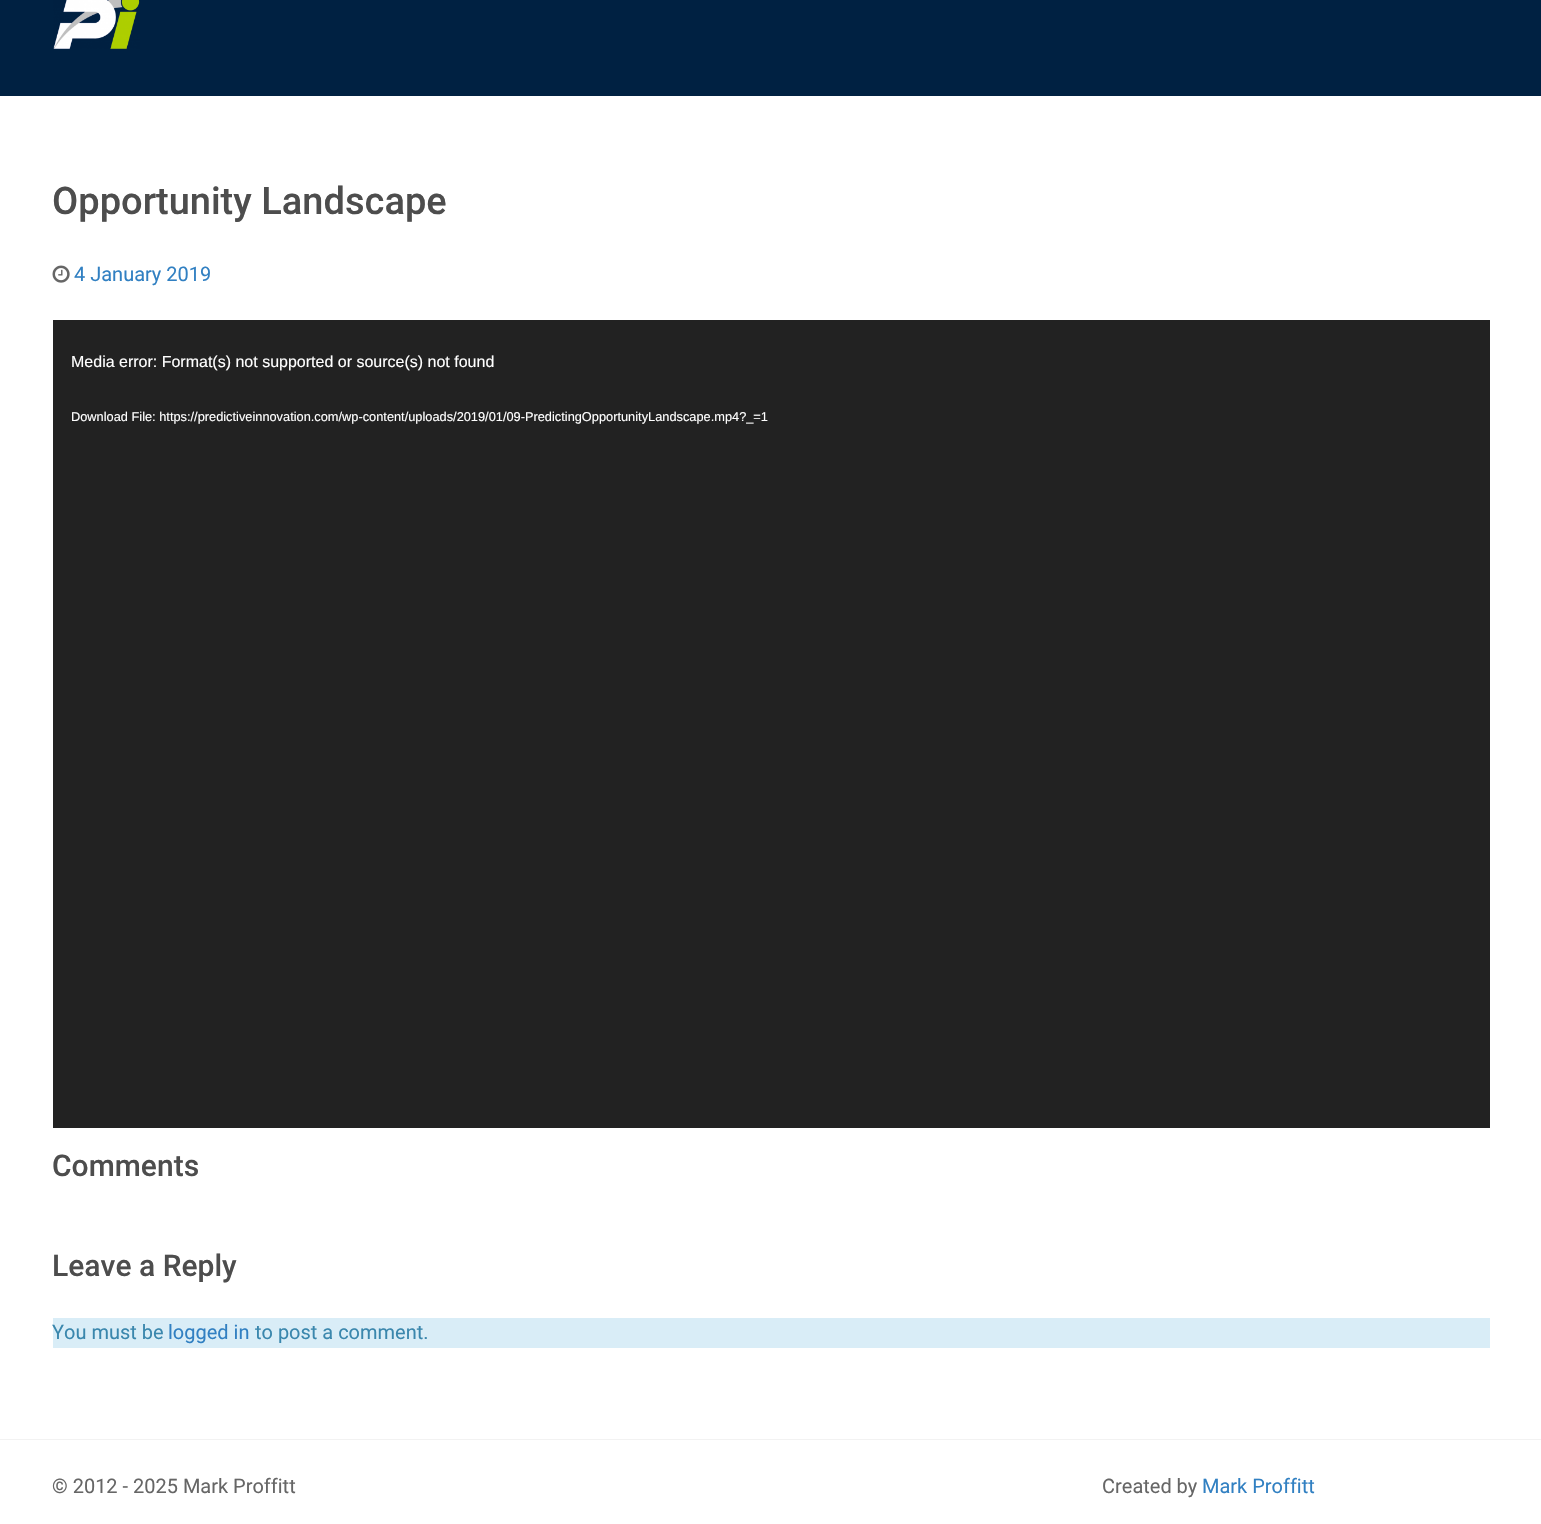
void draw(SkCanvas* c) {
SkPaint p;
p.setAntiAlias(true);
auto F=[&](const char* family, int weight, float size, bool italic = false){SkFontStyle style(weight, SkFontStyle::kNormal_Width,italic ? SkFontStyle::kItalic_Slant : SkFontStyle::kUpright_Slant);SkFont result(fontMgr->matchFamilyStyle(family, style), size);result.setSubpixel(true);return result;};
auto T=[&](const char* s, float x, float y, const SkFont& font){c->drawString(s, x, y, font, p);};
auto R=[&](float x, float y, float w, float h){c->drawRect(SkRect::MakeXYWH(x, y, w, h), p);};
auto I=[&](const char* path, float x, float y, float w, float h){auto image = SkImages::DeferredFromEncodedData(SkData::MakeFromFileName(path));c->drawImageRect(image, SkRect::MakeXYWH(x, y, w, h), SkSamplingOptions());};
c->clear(0xffffffff);
p.setColor(0xff002142);
R(0,0,1541,96);
I("1.png",53,0,87,49);
auto f1 = F("Roboto",500,38);
p.setColor(0xff4d4d4d);
T("Opportunity Landscape",52,214,f1);
I("2.png",52,265,18,18);
auto f2 = F("Roboto",400,20);
p.setColor(0xff3180c2);
T("4 January 2019",74,281,f2);
p.setColor(0xff222222);
R(53,320,1437,808);
auto f3 = F("Liberation Sans",400,16);
p.setColor(0xffffffff);
T("Media error: Format(s) not supported or source(s) not found",71,367,f3);
auto f4 = F("Liberation Sans",400,12.8);
T("Download File: https://predictiveinnovation.com/wp-content/uploads/2019/01/09-PredictingOpportunityLandscape.mp4?_=1",71,421,f4);
auto f5 = F("Roboto",500,30);
p.setColor(0xff4d4d4d);
T("Comments",52,1176,f5);
T("Leave a Reply",52,1276,f5);
p.setColor(0xffd9edf7);
R(53,1318,1437,30);
p.setColor(0xff3a87ad);
T("You must be",52,1339,f2);
p.setColor(0xff3180c2);
T("logged in",168,1339,f2);
p.setColor(0xff3a87ad);
T("to post a comment.",255,1339,f2);
p.setColor(0xfff2f2f2);
R(0,1439,1541,1);
p.setColor(0xff666666);
T("© 2012 - 2025 Mark Proffitt",52,1493,f2);
T("Created by",1102,1493,f2);
p.setColor(0xff3180c2);
T("Mark Proffitt",1202,1493,f2);
}
